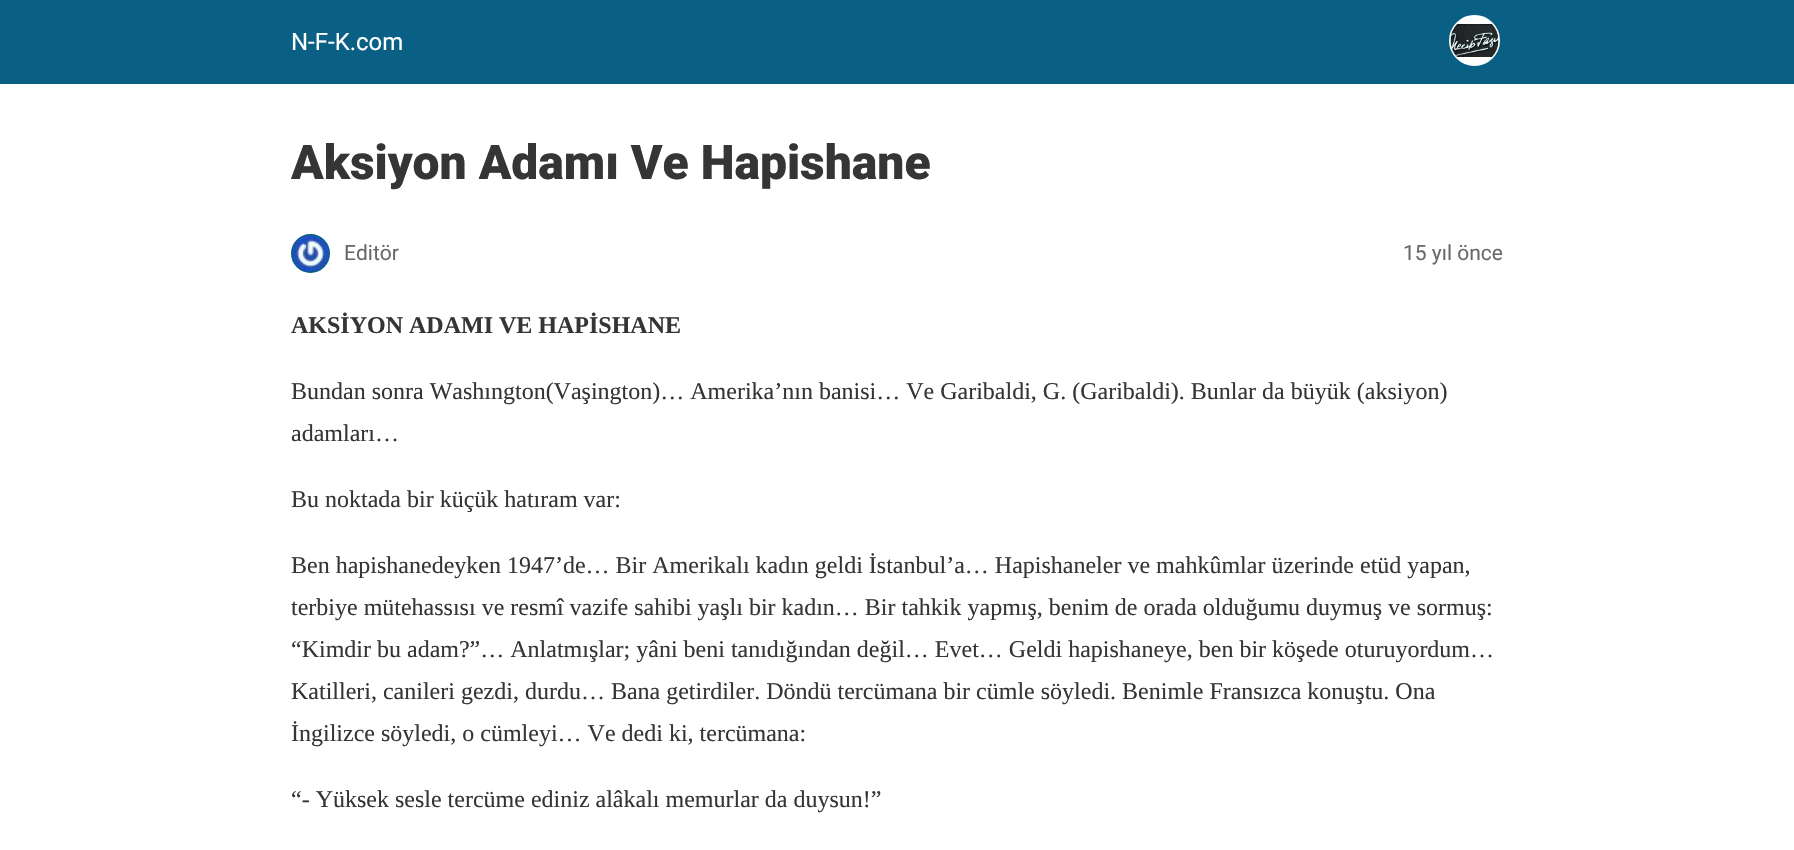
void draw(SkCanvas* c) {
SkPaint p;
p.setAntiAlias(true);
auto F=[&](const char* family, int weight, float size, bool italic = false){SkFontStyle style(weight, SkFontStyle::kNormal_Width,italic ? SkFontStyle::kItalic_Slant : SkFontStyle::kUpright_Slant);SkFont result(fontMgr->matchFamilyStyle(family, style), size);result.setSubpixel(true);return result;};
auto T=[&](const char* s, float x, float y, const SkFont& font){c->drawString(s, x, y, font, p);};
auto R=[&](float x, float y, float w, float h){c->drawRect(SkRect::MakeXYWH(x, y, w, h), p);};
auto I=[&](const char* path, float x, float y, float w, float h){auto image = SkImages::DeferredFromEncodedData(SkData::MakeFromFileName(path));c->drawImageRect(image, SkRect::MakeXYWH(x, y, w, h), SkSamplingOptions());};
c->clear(0xffffffff);
p.setColor(0xff0a5f85);
R(0,0,1794,84);
auto f1 = F("Roboto",400,24);
p.setColor(0xffffffff);
T("N-F-K.com",291,50,f1);
c->drawCircle(1474.5,40.5,24.5,p);
p.setStroke(true);
p.setStrokeWidth(2);
c->drawCircle(1474.5,40.5,24.5,p);
I("1.png",1450,24,49,33);
auto f2 = F("Roboto",900,48);
p.setStroke(false);
p.setColor(0xff353535);
T("Aksiyon Adamı Ve Hapishane",291,179,f2);
p.setStroke(true);
p.setColor(0xff0a5f85);
c->drawCircle(310.5,253.5,18.5,p);
I("2.png",292,235,37,37);
auto f3 = F("Roboto",400,21);
p.setStroke(false);
p.setColor(0xff696969);
T("Editör",344,260,f3);
T("15 yıl önce",1403,260,f3);
auto f4 = F("Liberation Serif",700,24);
p.setColor(0xff353535);
T("AKSİYON ADAMI VE HAPİSHANE",291,333,f4);
auto f5 = F("Liberation Serif",400,24);
T("Bundan sonra Washıngton(Vaşington)… Amerika’nın banisi… Ve Garibaldi, G. (Garibaldi). Bunlar da büyük (aksiyon)",291,399,f5);
T("adamları…",291,441,f5);
T("Bu noktada bir küçük hatıram var:",291,507,f5);
T("Ben hapishanedeyken 1947’de… Bir Amerikalı kadın geldi İstanbul’a… Hapishaneler ve mahkûmlar üzerinde etüd yapan,",291,573,f5);
T("terbiye mütehassısı ve resmî vazife sahibi yaşlı bir kadın… Bir tahkik yapmış, benim de orada olduğumu duymuş ve sormuş:",291,615,f5);
T("“Kimdir bu adam?”… Anlatmışlar; yâni beni tanıdığından değil… Evet… Geldi hapishaneye, ben bir köşede oturuyordum…",291,657,f5);
T("Katilleri, canileri gezdi, durdu… Bana getirdiler. Döndü tercümana bir cümle söyledi. Benimle Fransızca konuştu. Ona",291,699,f5);
T("İngilizce söyledi, o cümleyi… Ve dedi ki, tercümana:",291,741,f5);
T("“- Yüksek sesle tercüme ediniz alâkalı memurlar da duysun!”",291,807,f5);
}
